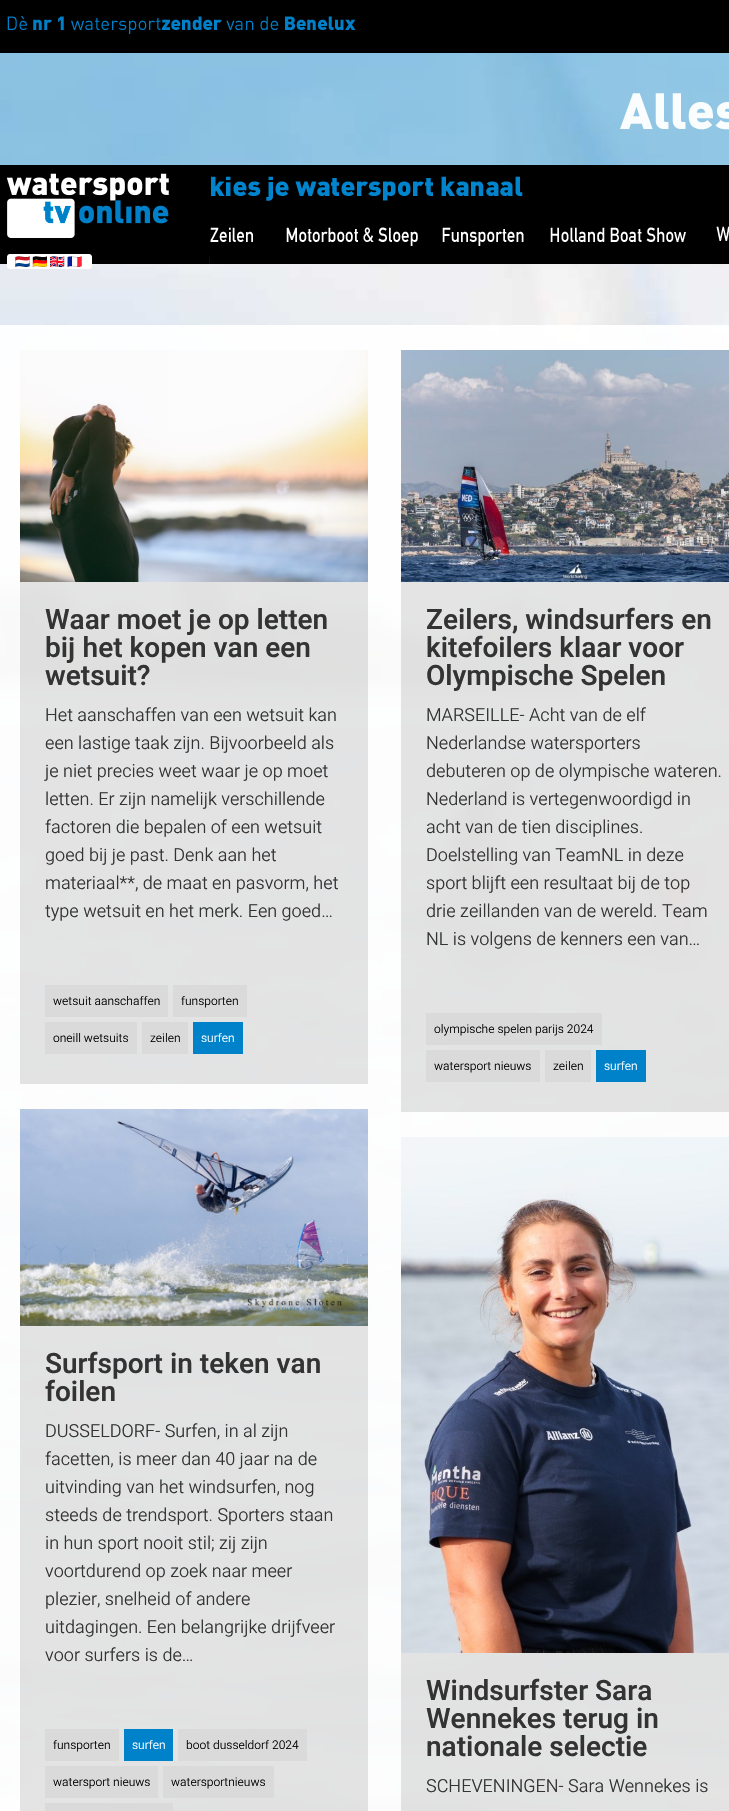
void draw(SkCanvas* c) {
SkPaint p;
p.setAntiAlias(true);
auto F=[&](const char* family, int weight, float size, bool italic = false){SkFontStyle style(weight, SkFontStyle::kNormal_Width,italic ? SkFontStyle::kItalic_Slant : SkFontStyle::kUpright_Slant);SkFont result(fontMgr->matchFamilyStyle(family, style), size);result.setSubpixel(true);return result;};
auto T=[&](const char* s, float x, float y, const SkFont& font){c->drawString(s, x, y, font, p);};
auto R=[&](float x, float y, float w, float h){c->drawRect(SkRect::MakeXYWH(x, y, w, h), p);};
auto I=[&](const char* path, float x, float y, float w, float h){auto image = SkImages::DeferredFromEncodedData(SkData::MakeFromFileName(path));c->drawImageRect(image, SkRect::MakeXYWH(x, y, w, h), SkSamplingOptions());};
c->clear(0xffffffff);
I("2.png",0,53,729,1758);
I("1.png",0,0,729,165);
I("3.png",7,16,349,18);
I("4.png",620,93,109,37);
p.setColor(0xff000000);
R(0,165,729,99);
I("5.png",6,173,204,96);
I("6.png",210,176,74,66);
I("7.png",284,178,149,68);
I("8.png",441,176,83,70);
I("9.png",550,227,136,15);
I("10.png",716,226,13,15);
p.setColor(0xedffffff);
R(0,325,729,1486);
p.setColor(0x1a000000);
R(20,582,348,502);
I("11.png",20,350,348,232);
auto f1 = F("Heebo",600,28);
p.setColor(0xff333333);
T("Waar moet je op letten",45,629,f1);
T("bij het kopen van een",45,657,f1);
T("wetsuit?",45,685,f1);
auto f2 = F("Heebo",300,18);
T("Het aanschaffen van een wetsuit kan",45,721,f2);
T("een lastige taak zijn. Bijvoorbeeld als",45,749,f2);
T("je niet precies weet waar je op moet",45,777,f2);
T("letten. Er zijn namelijk verschillende",45,805,f2);
T("factoren die bepalen of een wetsuit",45,833,f2);
T("goed bij je past. Denk aan het",45,861,f2);
T("materiaal**, de maat en pasvorm, het",45,889,f2);
T("type wetsuit en het merk. Een goed…",45,917,f2);
p.setColor(0xffdadada);
R(45,985,123,32);
auto f3 = F("Heebo",300,12);
p.setColor(0xff000000);
T("wetsuit aanschaffen",53,1005,f3);
p.setColor(0xffdadada);
R(173,985,74,32);
p.setColor(0xff000000);
T("funsporten",181,1005,f3);
p.setColor(0xffdadada);
R(45,1022,92,32);
p.setColor(0xff000000);
T("oneill wetsuits",53,1042,f3);
p.setColor(0xffdadada);
R(142,1022,46,32);
p.setColor(0xff000000);
T("zeilen",150,1042,f3);
p.setColor(0xff0082ca);
R(193,1022,50,32);
p.setColor(0xffffffff);
T("surfen",201,1042,f3);
p.setColor(0x1a000000);
R(401,582,328,530);
I("12.png",401,350,328,232);
p.setColor(0xff333333);
T("Zeilers, windsurfers en",426,629,f1);
T("kitefoilers klaar voor",426,657,f1);
T("Olympische Spelen",426,685,f1);
T("MARSEILLE- Acht van de elf",426,721,f2);
T("Nederlandse watersporters",426,749,f2);
T("debuteren op de olympische wateren.",426,777,f2);
T("Nederland is vertegenwoordigd in",426,805,f2);
T("acht van de tien disciplines.",426,833,f2);
T("Doelstelling van TeamNL in deze",426,861,f2);
T("sport blijft een resultaat bij de top",426,889,f2);
T("drie zeillanden van de wereld. Team",426,917,f2);
T("NL is volgens de kenners een van…",426,945,f2);
p.setColor(0xffdadada);
R(426,1013,176,32);
p.setColor(0xff000000);
T("olympische spelen parijs 2024",434,1033,f3);
p.setColor(0xffdadada);
R(426,1050,114,32);
p.setColor(0xff000000);
T("watersport nieuws",434,1070,f3);
p.setColor(0xffdadada);
R(545,1050,46,32);
p.setColor(0xff000000);
T("zeilen",553,1070,f3);
p.setColor(0xff0082ca);
R(596,1050,50,32);
p.setColor(0xffffffff);
T("surfen",604,1070,f3);
p.setColor(0x1a000000);
R(20,1326,348,485);
I("13.png",20,1109,348,217);
p.setColor(0xff333333);
T("Surfsport in teken van",45,1373,f1);
T("foilen",45,1401,f1);
T("DUSSELDORF- Surfen, in al zijn",45,1437,f2);
T("facetten, is meer dan 40 jaar na de",45,1465,f2);
T("uitvinding van het windsurfen, nog",45,1493,f2);
T("steeds de trendsport. Sporters staan",45,1521,f2);
T("in hun sport nooit stil; zij zijn",45,1549,f2);
T("voortdurend op zoek naar meer",45,1577,f2);
T("plezier, snelheid of andere",45,1605,f2);
T("uitdagingen. Een belangrijke drijfveer",45,1633,f2);
T("voor surfers is de…",45,1661,f2);
p.setColor(0xffdadada);
R(45,1729,74,32);
p.setColor(0xff000000);
T("funsporten",53,1749,f3);
p.setColor(0xff0082ca);
R(124,1729,49,32);
p.setColor(0xffffffff);
T("surfen",132,1749,f3);
p.setColor(0xffdadada);
R(178,1729,129,32);
p.setColor(0xff000000);
T("boot dusseldorf 2024",186,1749,f3);
p.setColor(0xffdadada);
R(45,1766,113,32);
p.setColor(0xff000000);
T("watersport nieuws",53,1786,f3);
p.setColor(0xffdadada);
R(163,1766,111,32);
p.setColor(0xff000000);
T("watersportnieuws",171,1786,f3);
p.setColor(0xffdadada);
R(45,1803,128,8);
p.setColor(0x1a000000);
R(401,1653,328,158);
I("14.png",401,1137,328,516);
p.setColor(0xff333333);
T("Windsurfster Sara",426,1700,f1);
T("Wennekes terug in",426,1728,f1);
T("nationale selectie",426,1756,f1);
T("SCHEVENINGEN- Sara Wennekes is",426,1792,f2);
}
